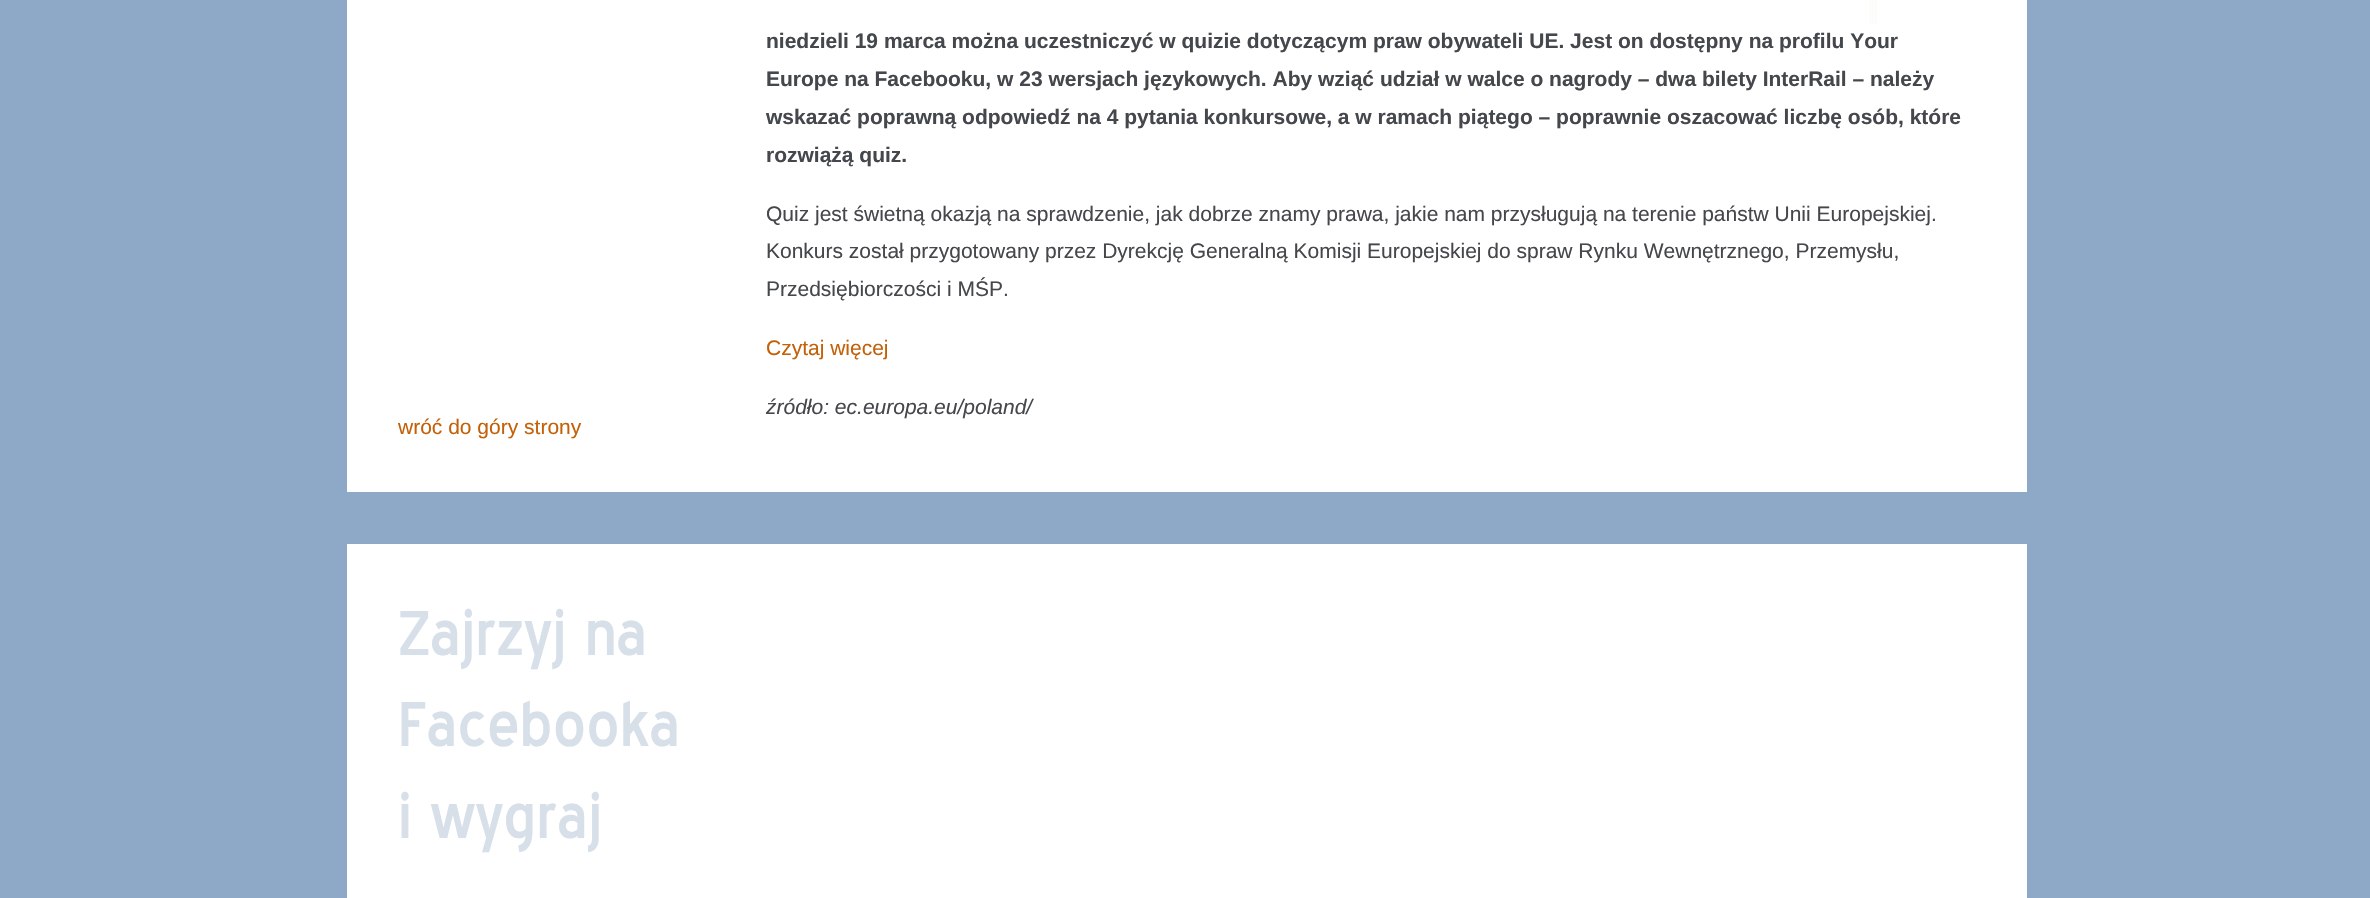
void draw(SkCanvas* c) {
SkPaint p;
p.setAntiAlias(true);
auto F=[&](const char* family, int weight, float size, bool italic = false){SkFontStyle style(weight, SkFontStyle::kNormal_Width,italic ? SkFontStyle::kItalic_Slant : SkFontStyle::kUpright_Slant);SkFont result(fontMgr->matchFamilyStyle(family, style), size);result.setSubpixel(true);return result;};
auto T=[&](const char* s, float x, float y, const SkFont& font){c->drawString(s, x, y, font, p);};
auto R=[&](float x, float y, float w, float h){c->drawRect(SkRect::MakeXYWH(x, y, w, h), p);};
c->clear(0xff8ea9c7);
p.setColor(0xffffffff);
R(347,0,1680,492);
auto f1 = F("Liberation Sans",700,21);
p.setColor(0xff44474b);
T("niedzieli 19 marca można uczestniczyć w quizie dotyczącym praw obywateli UE. Jest on dostępny na profilu Your",766,48,f1);
p.setColor(0xfffcfcfa);
R(1869,0,8,24);
p.setColor(0xff44474b);
T("Europe na Facebooku, w 23 wersjach językowych. Aby wziąć udział w walce o nagrody – dwa bilety InterRail – należy",766,86,f1);
T("wskazać poprawną odpowiedź na 4 pytania konkursowe, a w ramach piątego – poprawnie oszacować liczbę osób, które",766,124,f1);
T("rozwiążą quiz.",766,162,f1);
auto f2 = F("Liberation Sans",400,21);
T("Quiz jest świetną okazją na sprawdzenie, jak dobrze znamy prawa, jakie nam przysługują na terenie państw Unii Europejskiej.",766,221,f2);
T("Konkurs został przygotowany przez Dyrekcję Generalną Komisji Europejskiej do spraw Rynku Wewnętrznego, Przemysłu,",766,258,f2);
T("Przedsiębiorczości i MŚP.",766,296,f2);
p.setColor(0xffc36008);
T("Czytaj więcej",766,355,f2);
auto f3 = F("Liberation Sans",400,21,true);
p.setColor(0xff44474b);
T("źródło: ec.europa.eu/poland/",766,414,f3);
p.setColor(0xffc36008);
T("wróć do góry strony",398,434,f2);
p.setColor(0xffffffff);
R(347,544,1680,354);
auto f4 = F("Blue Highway",400,61.25);
p.setColor(0xffd7dfe9);
T("Zajrzyj na",398,655,f4);
T("Facebooka",398,746,f4);
T("i wygraj",398,838,f4);
}
